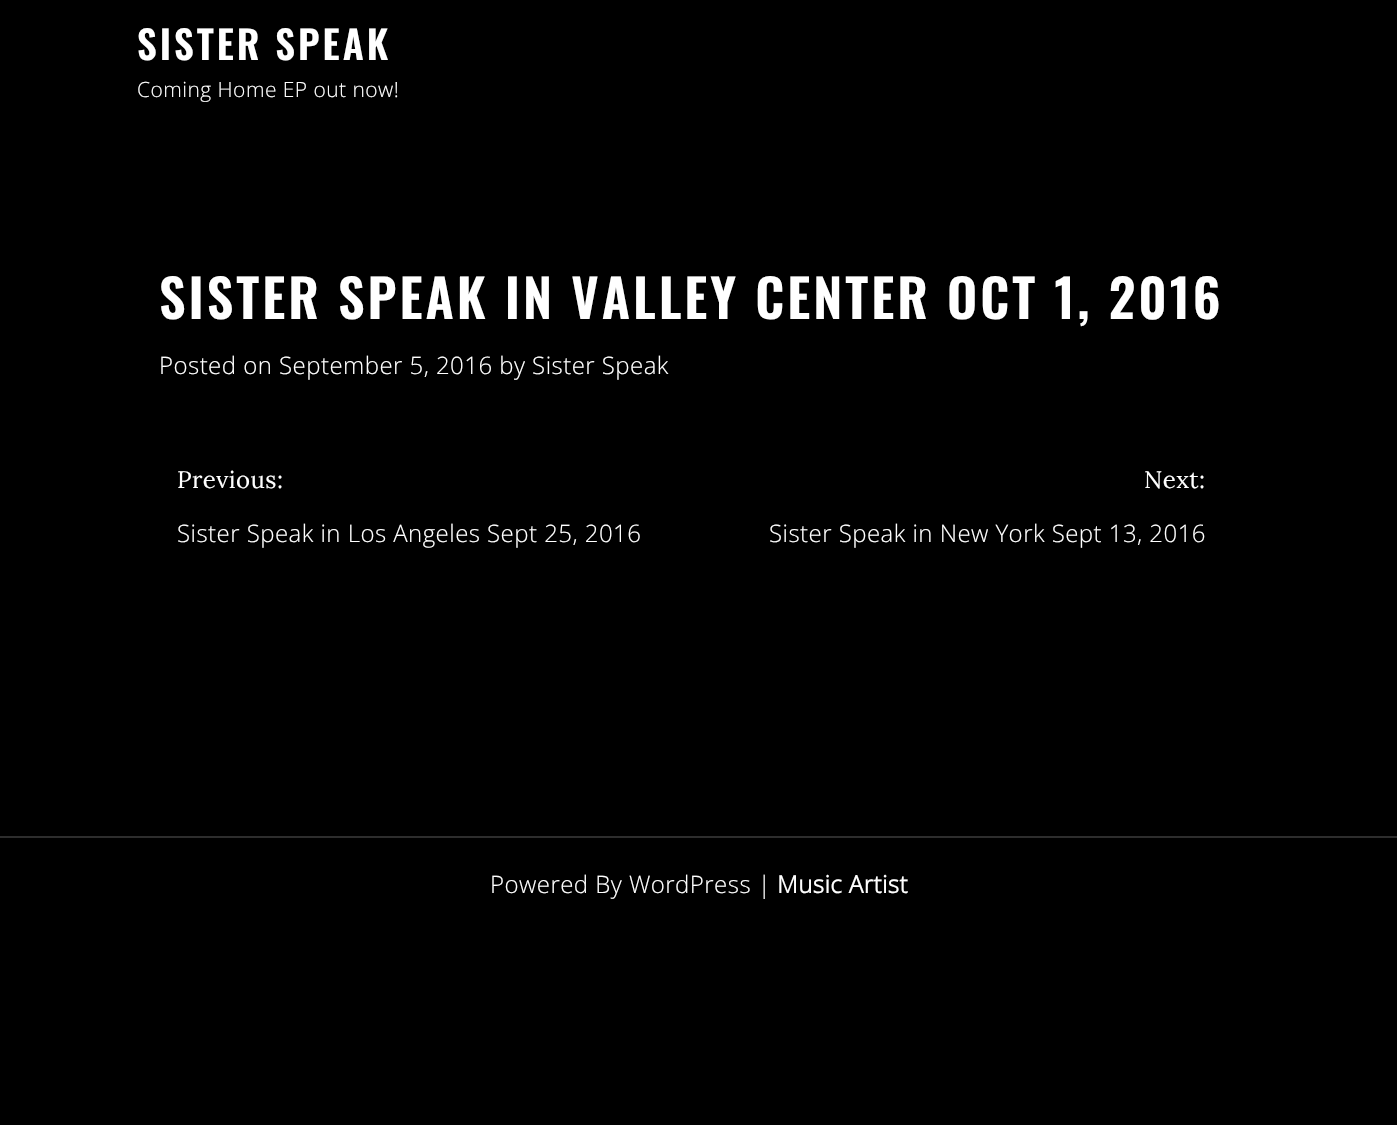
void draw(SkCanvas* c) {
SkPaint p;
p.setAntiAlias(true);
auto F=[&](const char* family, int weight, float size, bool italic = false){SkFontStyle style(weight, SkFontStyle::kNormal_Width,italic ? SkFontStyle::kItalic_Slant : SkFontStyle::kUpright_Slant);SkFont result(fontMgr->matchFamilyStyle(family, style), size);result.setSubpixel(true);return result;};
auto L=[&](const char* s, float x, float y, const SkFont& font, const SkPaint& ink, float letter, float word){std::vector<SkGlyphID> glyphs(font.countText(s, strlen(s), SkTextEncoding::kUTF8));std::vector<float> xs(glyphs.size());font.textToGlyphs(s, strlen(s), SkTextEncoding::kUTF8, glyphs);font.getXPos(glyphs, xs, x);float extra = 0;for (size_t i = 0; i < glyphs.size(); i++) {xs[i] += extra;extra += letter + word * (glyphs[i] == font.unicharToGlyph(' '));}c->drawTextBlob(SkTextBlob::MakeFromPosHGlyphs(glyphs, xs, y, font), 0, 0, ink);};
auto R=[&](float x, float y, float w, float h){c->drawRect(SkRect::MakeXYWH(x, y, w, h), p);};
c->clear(0xff000000);
auto f1 = F("Oswald",600,39);
p.setColor(0xffffffff);
L("SISTER SPEAK",137,60,f1,p,3,0);
auto f2 = F("Open Sans",300,21);
L("Coming Home EP out now!",137,97,f2,p,.45,0);
auto f3 = F("Oswald",600,52.5);
L("SISTER SPEAK IN VALLEY CENTER OCT 1, 2016",159,319,f3,p,3,0);
auto f4 = F("Open Sans",300,24);
L("Posted on September 5, 2016 by Sister Speak",159,374,f4,p,.45,0);
auto f5 = F("Lora",400,24);
L("Previous:",177,488,f5,p,.45,0);
L("Sister Speak in Los Angeles Sept 25, 2016",177,542,f4,p,.45,0);
L("Next:",1144,488,f5,p,.45,0);
L("Sister Speak in New York Sept 13, 2016",769,542,f4,p,.45,0);
p.setColor(0xff2d2d2d);
R(0,836,1397,2);
p.setColor(0xffffffff);
L("Powered By WordPress |",490,893,f4,p,.45,0);
auto f6 = F("Open Sans",700,24);
L("Music Artist",777,893,f6,p,.45,0);
}
